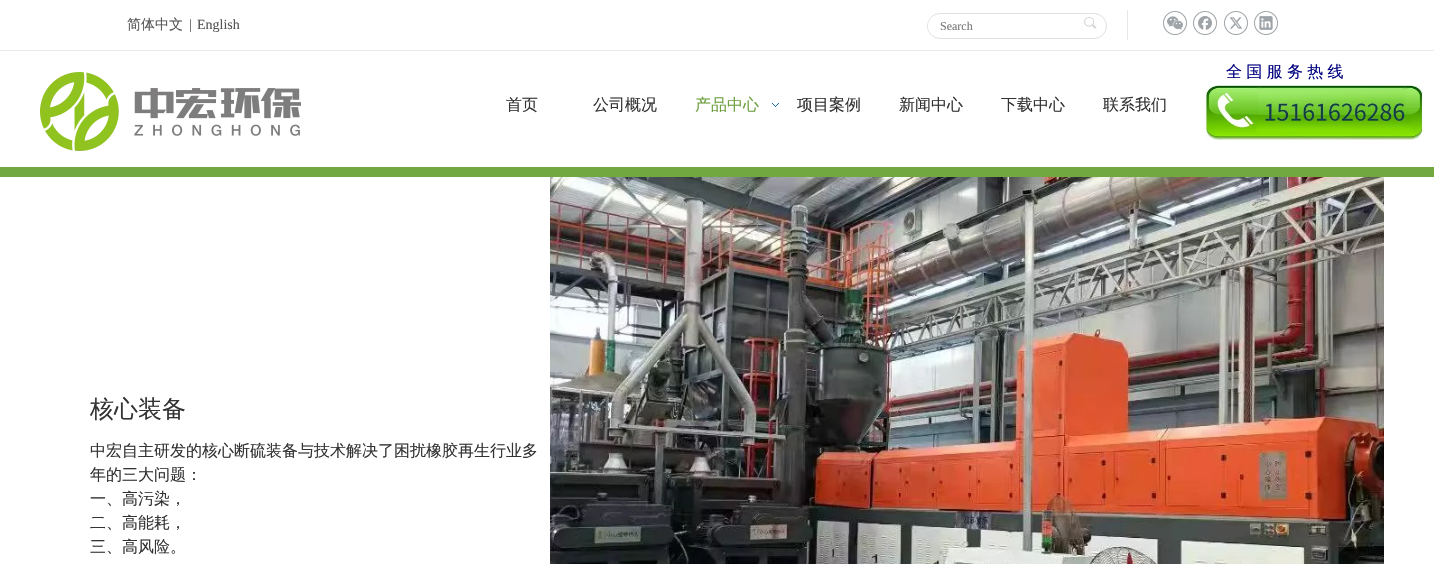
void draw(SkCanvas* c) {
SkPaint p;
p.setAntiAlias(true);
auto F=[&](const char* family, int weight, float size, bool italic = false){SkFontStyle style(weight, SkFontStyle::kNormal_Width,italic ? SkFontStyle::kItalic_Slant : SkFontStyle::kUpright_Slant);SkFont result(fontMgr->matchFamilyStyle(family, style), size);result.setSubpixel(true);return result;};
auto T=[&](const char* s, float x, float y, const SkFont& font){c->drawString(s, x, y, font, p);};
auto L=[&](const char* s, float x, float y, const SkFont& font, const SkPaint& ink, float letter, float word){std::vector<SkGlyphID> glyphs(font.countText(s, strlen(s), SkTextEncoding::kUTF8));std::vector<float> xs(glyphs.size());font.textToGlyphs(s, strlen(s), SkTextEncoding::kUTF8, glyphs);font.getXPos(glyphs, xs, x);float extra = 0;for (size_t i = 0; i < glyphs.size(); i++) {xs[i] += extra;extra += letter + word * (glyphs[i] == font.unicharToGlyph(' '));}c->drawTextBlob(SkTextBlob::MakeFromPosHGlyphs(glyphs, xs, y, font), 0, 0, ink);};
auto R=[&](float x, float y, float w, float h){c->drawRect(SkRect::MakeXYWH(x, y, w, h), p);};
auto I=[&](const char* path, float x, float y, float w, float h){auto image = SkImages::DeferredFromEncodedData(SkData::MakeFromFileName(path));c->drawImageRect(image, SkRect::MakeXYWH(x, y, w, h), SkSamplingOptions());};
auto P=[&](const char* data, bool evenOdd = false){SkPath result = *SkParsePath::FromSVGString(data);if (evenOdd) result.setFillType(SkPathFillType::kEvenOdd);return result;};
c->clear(0xffffffff);
p.setColor(0xffebebeb);
R(0,50,1434,1);
auto f1 = F("WenQuanYi Zen Hei",500,14);
p.setColor(0xff545454);
T("简体中文",127,29,f1);
auto f2 = F("Liberation Serif",400,14);
T("|",189,29,f2);
T("English",197,29,f2);
p.setStroke(true);
p.setStrokeWidth(1);
p.setColor(0xffe0e0e0);
c->drawRoundRect(SkRect::MakeXYWH(927.5,13.5,179,25),12.5,12.5,p);
c->save();
c->clipPath(P("M940 14h154c6.5 0 12 5.5 12 12c0 6.5-5.5 12-12 12h-154c-6.5 0-12-5.5-12-12c0-6.5 5.5-12 12-12z"),true);
p.setStroke(false);
p.setColor(0xffffffff);
R(928,17,151,18);
c->restore();
auto f3 = F("Liberation Serif",400,12);
p.setColor(0xff757575);
T("Search",940,30,f3);
I("1.png",1081,15,16,16);
p.setColor(0xffe7e7e7);
R(1127,10,1,30);
I("2.png",1163,11,24,24);
I("3.png",1193,11,24,24);
I("4.png",1224,11,24,24);
I("5.png",1254,11,24,24);
p.setColor(0xff71a840);
R(0,167,1434,10);
I("6.png",40,72,261,79);
auto f4 = F("WenQuanYi Zen Hei",500,16);
p.setColor(0xff333333);
T("首页",506,110,f4);
T("公司概况",593,110,f4);
p.setColor(0xff6da03f);
T("产品中心",695,110,f4);
I("7.png",772,103,7,4);
p.setColor(0xff333333);
T("项目案例",797,110,f4);
T("新闻中心",899,110,f4);
T("下载中心",1001,110,f4);
T("联系我们",1103,110,f4);
p.setColor(0xff000080);
L("全 国 服 务 热 线",1226,77,f4,p,0,-.5);
I("8.png",1205,85,218,55);
auto f5 = F("WenQuanYi Zen Hei",500,24);
p.setColor(0xff333333);
T("核心装备",90,417,f5);
T("中宏自主研发的核心断硫装备与技术解决了困扰橡胶再生行业多",90,456,f4);
T("年的三大问题：",90,480,f4);
T("一、高污染，",90,504,f4);
T("二、高能耗，",90,528,f4);
T("三、高风险。",90,552,f4);
I("9.png",550,177,834,387);
}
